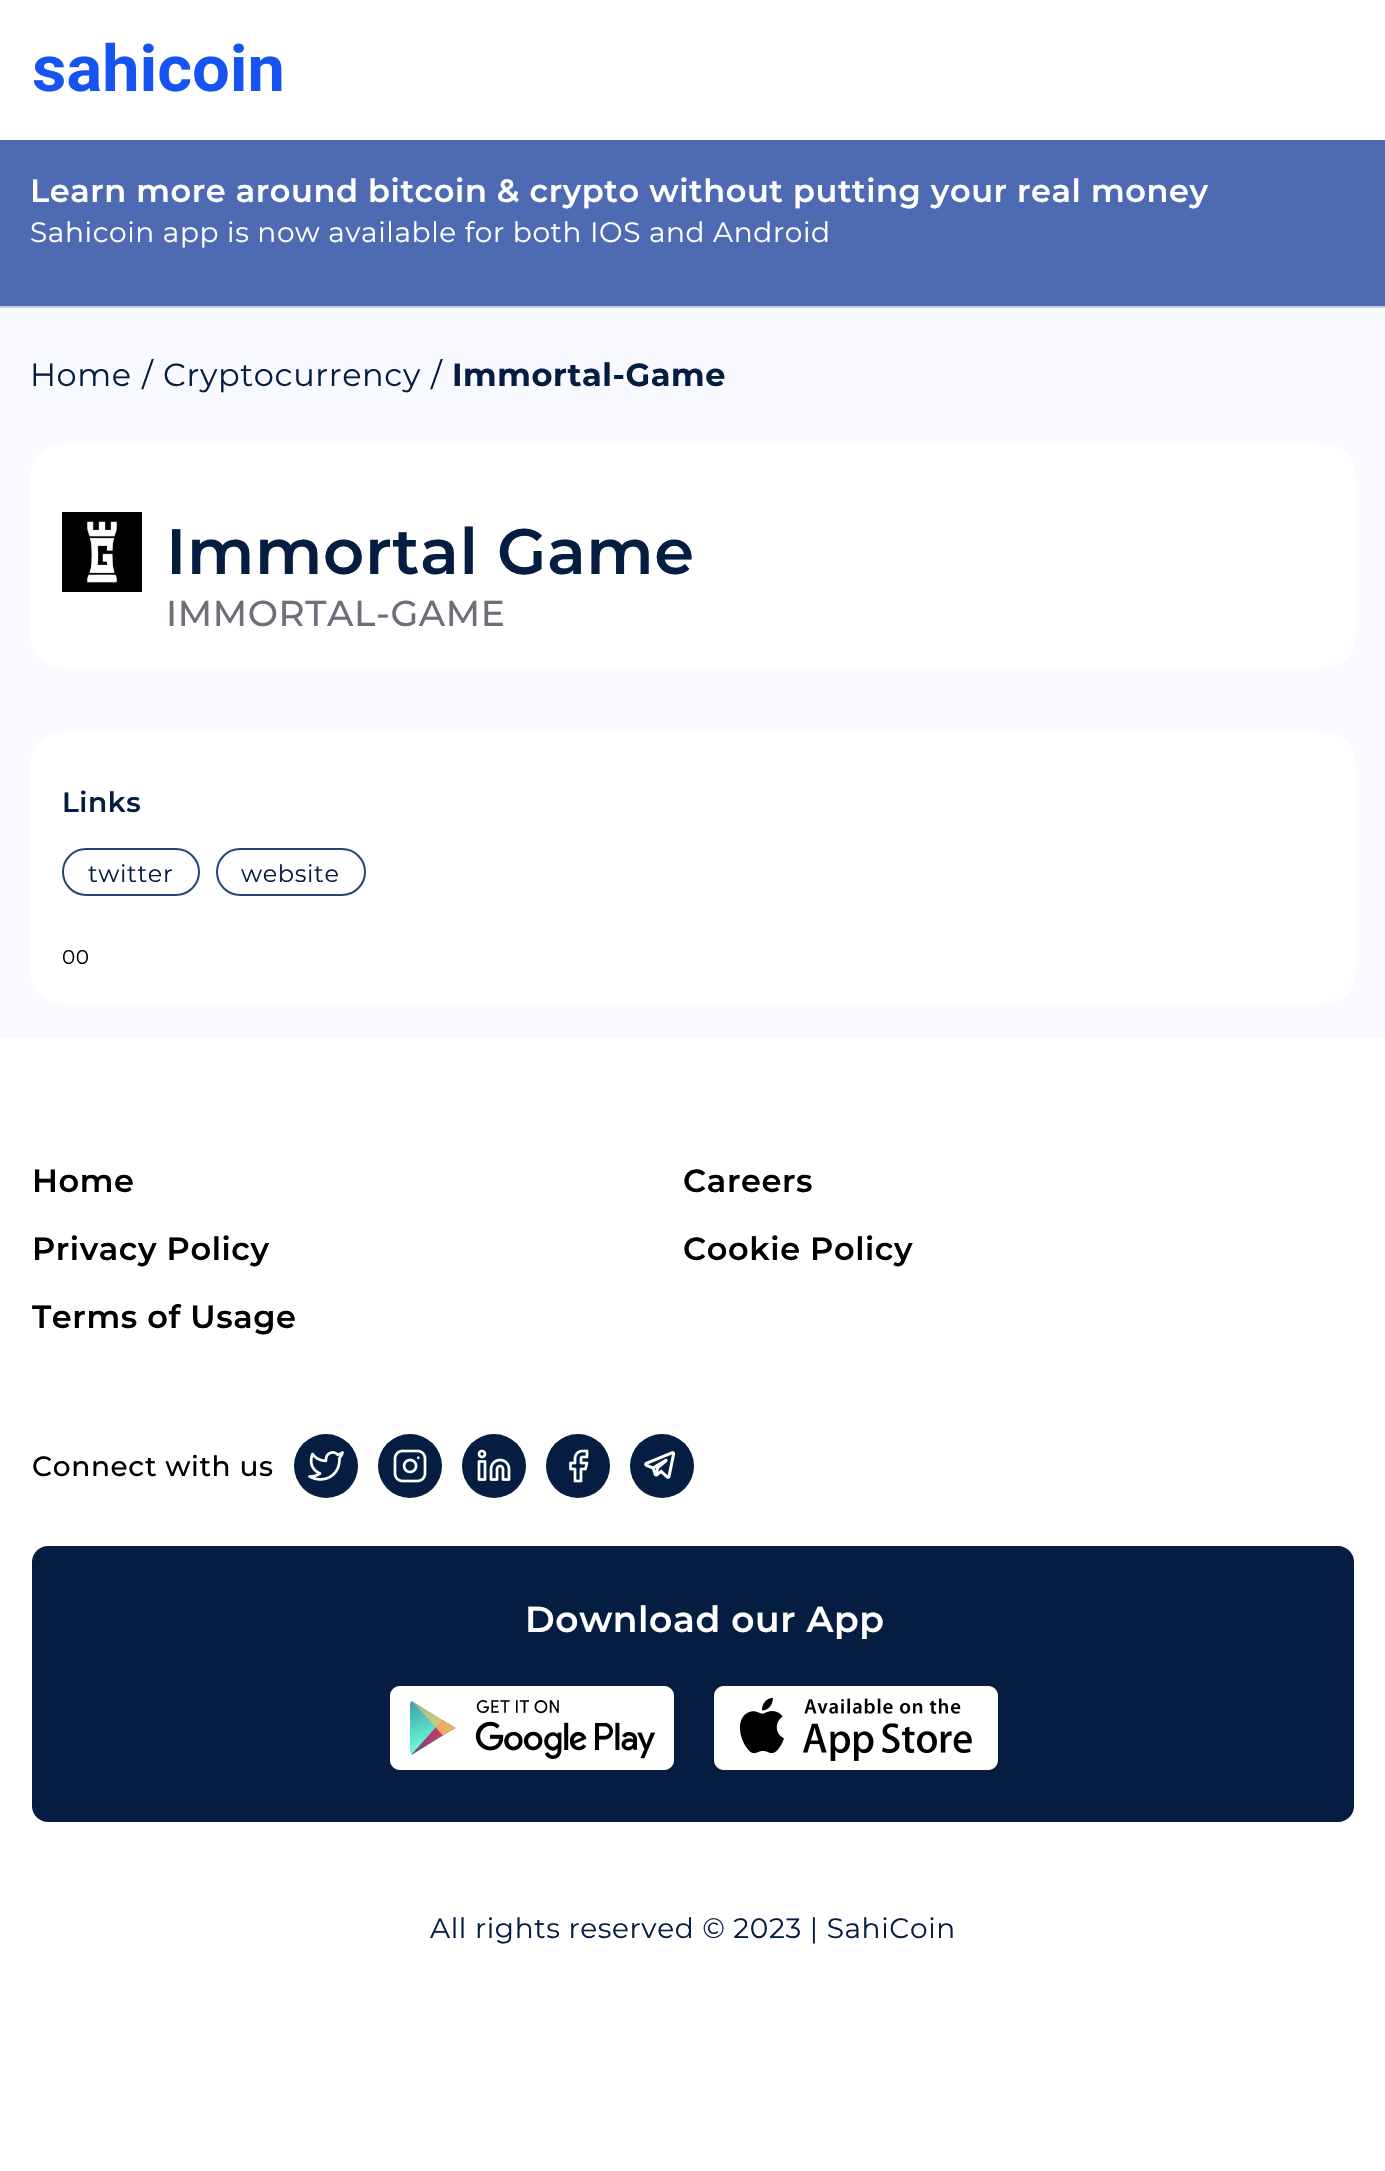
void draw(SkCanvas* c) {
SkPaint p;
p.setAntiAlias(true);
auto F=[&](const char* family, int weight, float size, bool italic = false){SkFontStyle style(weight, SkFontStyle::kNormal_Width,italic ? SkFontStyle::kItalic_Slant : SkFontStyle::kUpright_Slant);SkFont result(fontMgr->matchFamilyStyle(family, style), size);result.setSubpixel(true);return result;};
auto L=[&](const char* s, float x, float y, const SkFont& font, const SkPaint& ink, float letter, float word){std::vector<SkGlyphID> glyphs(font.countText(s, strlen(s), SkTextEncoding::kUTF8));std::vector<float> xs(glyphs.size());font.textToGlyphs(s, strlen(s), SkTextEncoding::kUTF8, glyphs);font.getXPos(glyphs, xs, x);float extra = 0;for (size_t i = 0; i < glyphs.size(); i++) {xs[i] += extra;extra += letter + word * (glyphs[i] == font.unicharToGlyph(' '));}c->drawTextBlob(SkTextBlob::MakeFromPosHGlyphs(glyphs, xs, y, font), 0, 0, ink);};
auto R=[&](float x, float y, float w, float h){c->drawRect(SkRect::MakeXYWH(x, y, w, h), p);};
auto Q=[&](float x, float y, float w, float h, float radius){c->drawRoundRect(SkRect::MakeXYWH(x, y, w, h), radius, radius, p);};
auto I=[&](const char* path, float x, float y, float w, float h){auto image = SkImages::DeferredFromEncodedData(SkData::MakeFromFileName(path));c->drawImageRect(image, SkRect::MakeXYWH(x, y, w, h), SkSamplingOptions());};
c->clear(0xffffffff);
I("1.png",33,42,249,50);
p.setColor(0xfff8faff);
R(0,308,1385,730);
p.setColor(0xff4d6ab2);
R(0,140,1385,166);
auto f1 = F("Montserrat",600,32);
p.setColor(0xffffffff);
L("Learn more around bitcoin & crypto without putting your real money",30,202,f1,p,.6,0);
auto f2 = F("Montserrat",400,28);
L("Sahicoin app is now available for both IOS and Android",30,242,f2,p,.6,0);
p.setColor(0xffc7ced9);
R(0,306,1385,2);
auto f3 = F("Montserrat",400,32);
p.setColor(0xff051d40);
L("Home",30,386,f3,p,.6,0);
L("/",142,386,f3,p,.6,0);
L("Cryptocurrency",163,386,f3,p,.6,0);
L("/",431,386,f3,p,.6,0);
auto f4 = F("Montserrat",700,32);
L("Immortal-Game",452,386,f4,p,.6,0);
p.setColor(0xffffffff);
Q(30,444,1326,224,32);
I("2.png",62,512,80,80);
auto f5 = F("Montserrat",600,64);
p.setColor(0xff051d40);
L("Immortal Game",166,574,f5,p,.6,0);
auto f6 = F("Montserrat",500,36);
p.setColor(0xff6f6f7c);
L("IMMORTAL-GAME",166,626,f6,p,.6,0);
p.setColor(0xffffffff);
Q(30,732,1326,272,32);
auto f7 = F("Montserrat",600,28);
p.setColor(0xff051d40);
L("Links",62,812,f7,p,.6,0);
p.setStroke(true);
p.setStrokeWidth(2);
p.setColor(0xff234475);
c->drawRoundRect(SkRect::MakeXYWH(63,849,136,46),23,23,p);
auto f8 = F("Montserrat",400,24);
p.setStroke(false);
p.setColor(0xff051d40);
L("twitter",88,882,f8,p,.6,0);
p.setStroke(true);
p.setColor(0xff234475);
c->drawRoundRect(SkRect::MakeXYWH(217,849,148,46),23,23,p);
p.setStroke(false);
p.setColor(0xff051d40);
L("website",241,882,f8,p,.6,0);
auto f9 = F("Montserrat",400,20);
p.setColor(0xff000000);
L("00",62,964,f9,p,.6,0);
L("Home",32,1192,f1,p,.6,0);
L("Careers",683,1192,f1,p,.6,0);
L("Privacy Policy",32,1260,f1,p,.6,0);
L("Cookie Policy",683,1260,f1,p,.6,0);
L("Terms of Usage",32,1328,f1,p,.6,0);
auto f10 = F("Montserrat",500,28);
L("Connect with us",32,1476,f10,p,.6,0);
p.setColor(0xff051d40);
c->drawCircle(326,1466,32,p);
I("3.png",308,1451,36,30);
c->drawCircle(410,1466,32,p);
I("4.png",393,1449,34,34);
c->drawCircle(494,1466,32,p);
I("5.png",477,1449,34,32);
c->drawCircle(578,1466,32,p);
I("6.png",569,1449,20,34);
c->drawCircle(662,1466,32,p);
I("7.png",644,1451,32,28);
Q(32,1546,1322,276,16);
auto f11 = F("Montserrat",600,36);
p.setColor(0xffffffff);
L("Download our App",525,1632,f11,p,.6,0);
I("8.png",390,1686,284,84);
I("9.png",714,1686,284,84);
p.setColor(0xff051d40);
L("All rights reserved © 2023 | SahiCoin",430,1938,f2,p,.6,0);
}
